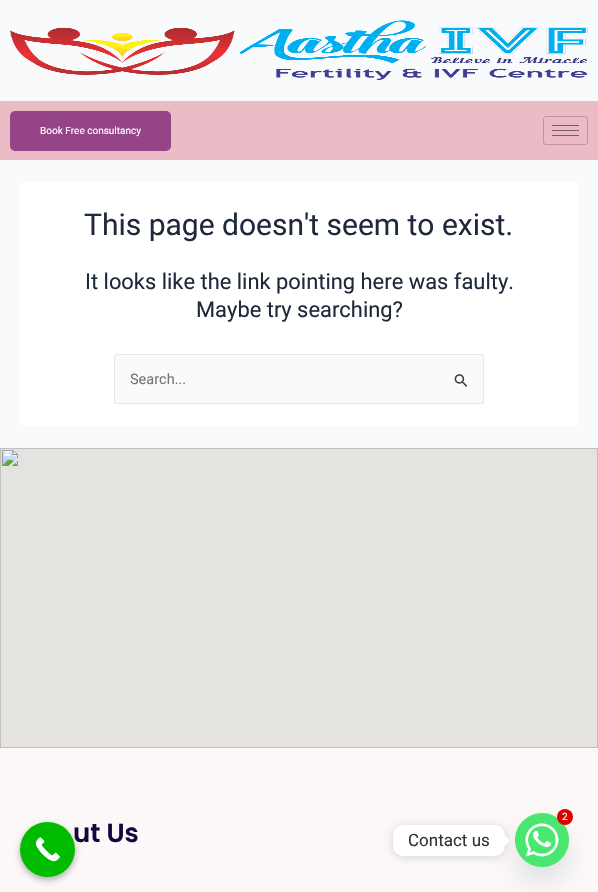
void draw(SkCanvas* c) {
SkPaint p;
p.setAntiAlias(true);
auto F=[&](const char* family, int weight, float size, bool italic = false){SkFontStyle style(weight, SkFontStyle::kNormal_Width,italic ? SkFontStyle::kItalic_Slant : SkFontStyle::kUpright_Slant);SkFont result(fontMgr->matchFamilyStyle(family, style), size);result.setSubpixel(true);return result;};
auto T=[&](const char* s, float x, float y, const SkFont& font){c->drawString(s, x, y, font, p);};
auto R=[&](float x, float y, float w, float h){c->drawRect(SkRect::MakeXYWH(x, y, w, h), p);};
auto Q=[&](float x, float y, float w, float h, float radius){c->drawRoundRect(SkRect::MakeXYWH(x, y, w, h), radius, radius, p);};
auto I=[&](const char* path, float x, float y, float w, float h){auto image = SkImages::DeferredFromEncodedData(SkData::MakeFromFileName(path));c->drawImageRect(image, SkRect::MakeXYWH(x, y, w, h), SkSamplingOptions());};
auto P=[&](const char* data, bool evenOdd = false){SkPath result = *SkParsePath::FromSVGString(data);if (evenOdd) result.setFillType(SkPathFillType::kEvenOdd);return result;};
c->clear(0xfff9fafb);
I("1.png",10,20,578,60);
p.setColor(0xffebbcc6);
R(0,101,598,59);
p.setColor(0xff964488);
Q(10,111,161,40,5);
auto f1 = F("Roboto",400,10);
p.setColor(0xffffffff);
T("Book Free consultancy",40,134,f1);
p.setStroke(true);
p.setStrokeWidth(1);
p.setColor(0xffbc969e);
c->drawRoundRect(SkRect::MakeXYWH(543.5,116.5,44,28),2.5,2.5,p);
p.setStroke(false);
p.setColor(0xff765e63);
R(552,125,27,1);
R(552,130,27,1);
R(552,135,27,1);
p.setColor(0xffffffff);
R(20,182,558,244);
auto f2 = F("Roboto",400,30);
p.setColor(0xff1e293b);
T("This page doesn't seem to exist.",84,235,f2);
auto f3 = F("Roboto",400,21.9);
T("It looks like the link pointing here was faulty.",85,289,f3);
T("Maybe try searching?",196,317,f3);
p.setColor(0xfffafafa);
c->drawRoundRect(SkRect::MakeXYWH(114.5,354.5,369,49),1.5,1.5,p);
p.setStroke(true);
p.setColor(0xffe2e8f0);
c->drawRoundRect(SkRect::MakeXYWH(114.5,354.5,369,49),1.5,1.5,p);
auto f4 = F("Roboto",400,14.5);
p.setStroke(false);
p.setColor(0xff757575);
T("Search...",130,384,f4);
I("2.png",454,374,13,13);
I("3.png",0,448,598,300);
p.setColor(0xfffcf8f7);
R(0,748,598,144);
auto f5 = F("Poppins",600,26);
p.setColor(0xff15063f);
T("ut Us",73,842,f5);
p.setColor(0x4d000000);
p.setMaskFilter(SkMaskFilter::MakeBlur(kNormal_SkBlurStyle, 3));
c->drawRoundRect(SkRect::MakeXYWH(20,825,55,55),27.5,27.5,p);
p.setMaskFilter(nullptr);
p.setColor(0xff00bb00);
c->drawCircle(47.5,849.5,27.5,p);
I("4.png",35,837,25,25);
p.setColor(0x2949687e);
p.setMaskFilter(SkMaskFilter::MakeBlur(kNormal_SkBlurStyle, 12));
c->drawRoundRect(SkRect::MakeXYWH(515,829,54,54),27,27,p);
p.setMaskFilter(nullptr);
I("5.png",515,813,54,54);
p.setColor(0xffdd0000);
c->drawCircle(565,817,8,p);
p.setColor(0xffffffff);
T("2",562,820,f1);
p.setColor(0x26000000);
p.setMaskFilter(SkMaskFilter::MakeBlur(kNormal_SkBlurStyle, 4));
c->drawRoundRect(SkRect::MakeXYWH(393,826,112,31),10,10,p);
p.setMaskFilter(nullptr);
p.setColor(0xffffffff);
Q(393,825,112,31,10);
auto f6 = F("Roboto",400,17);
p.setColor(0xff333333);
T("Contact us",408,846,f6);
p.setColor(0xffffffff);
c->drawPath(P("M505 845.5v-10l5 5z"),p);
}
